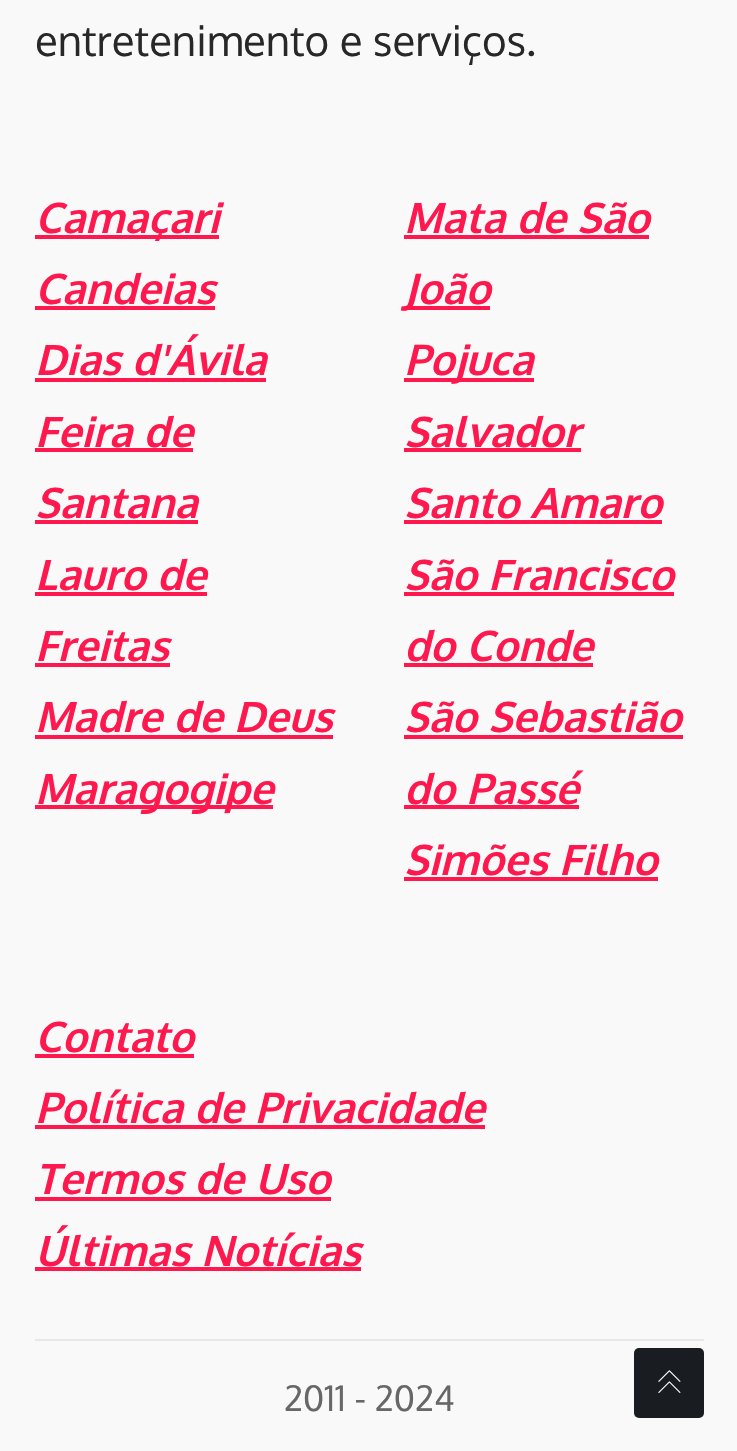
void draw(SkCanvas* c) {
SkPaint p;
p.setAntiAlias(true);
auto F=[&](const char* family, int weight, float size, bool italic = false){SkFontStyle style(weight, SkFontStyle::kNormal_Width,italic ? SkFontStyle::kItalic_Slant : SkFontStyle::kUpright_Slant);SkFont result(fontMgr->matchFamilyStyle(family, style), size);result.setSubpixel(true);return result;};
auto T=[&](const char* s, float x, float y, const SkFont& font){c->drawString(s, x, y, font, p);};
auto R=[&](float x, float y, float w, float h){c->drawRect(SkRect::MakeXYWH(x, y, w, h), p);};
auto Q=[&](float x, float y, float w, float h, float radius){c->drawRoundRect(SkRect::MakeXYWH(x, y, w, h), radius, radius, p);};
auto I=[&](const char* path, float x, float y, float w, float h){auto image = SkImages::DeferredFromEncodedData(SkData::MakeFromFileName(path));c->drawImageRect(image, SkRect::MakeXYWH(x, y, w, h), SkSamplingOptions());};
c->clear(0xfff9f9f9);
auto f1 = F("Oxygen",400,42);
p.setColor(0xff282828);
T("entretenimento e serviços.",35,56,f1);
p.setColor(0xffff184e);
R(35,235,184,4);
auto f2 = F("Oxygen",700,42,true);
T("Camaçari",35,233,f2);
T("Candeias",35,304,f2);
R(35,306,180,4);
T("Dias d'Ávila",35,375,f2);
R(35,378,231,4);
T("Feira de",35,447,f2);
R(35,448,158,4);
T("Santana",35,518,f2);
R(35,520,163,4);
T("Lauro de",35,590,f2);
R(35,592,172,4);
T("Freitas",35,661,f2);
R(35,663,135,4);
T("Madre de Deus",35,732,f2);
R(35,735,298,4);
R(35,805,238,4);
T("Maragogipe",35,804,f2);
T("Mata de São",404,233,f2);
R(404,235,245,4);
R(404,306,86,4);
T("João",404,304,f2);
R(404,378,130,4);
T("Pojuca",404,375,f2);
T("Salvador",404,447,f2);
R(404,448,177,4);
T("Santo Amaro",404,518,f2);
R(404,520,258,4);
T("São Francisco",404,590,f2);
R(404,592,270,4);
T("do Conde",404,661,f2);
R(404,663,189,4);
T("São Sebastião",404,732,f2);
R(404,735,279,4);
T("do Passé",404,804,f2);
R(404,805,175,4);
T("Simões Filho",404,875,f2);
R(404,877,254,4);
T("Contato",35,1052,f2);
R(35,1054,159,4);
T("Política de Privacidade",35,1123,f2);
R(35,1125,450,4);
T("Termos de Uso",35,1194,f2);
R(35,1197,296,4);
T("Últimas Notícias",35,1266,f2);
R(35,1267,326,4);
p.setColor(0xffe8e8e8);
R(35,1339,669,2);
auto f3 = F("Oxygen",400,35);
p.setColor(0xff676767);
T("2011 - 2024",284,1411,f3);
p.setColor(0xff191c20);
Q(634,1348,70,70,5);
I("1.png",658,1370,23,23);
}
